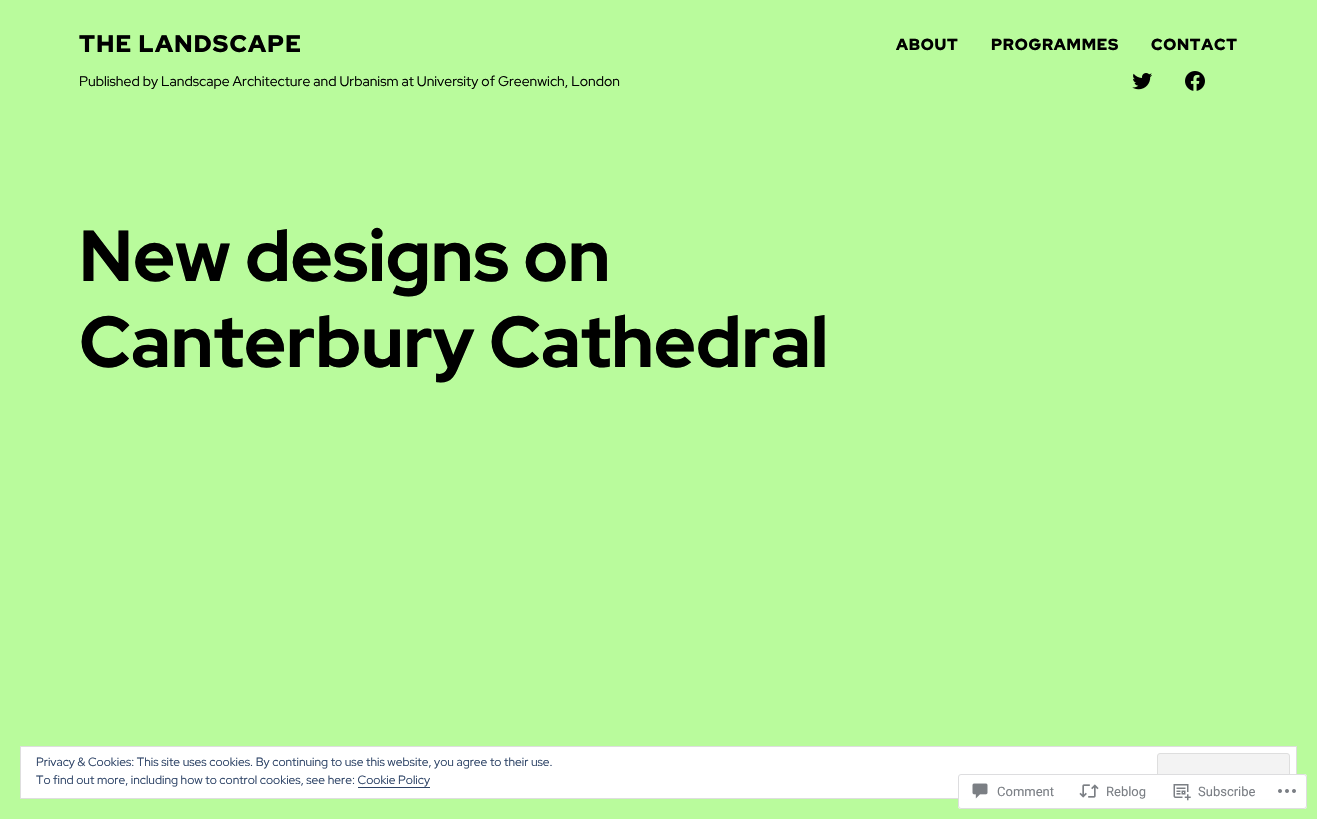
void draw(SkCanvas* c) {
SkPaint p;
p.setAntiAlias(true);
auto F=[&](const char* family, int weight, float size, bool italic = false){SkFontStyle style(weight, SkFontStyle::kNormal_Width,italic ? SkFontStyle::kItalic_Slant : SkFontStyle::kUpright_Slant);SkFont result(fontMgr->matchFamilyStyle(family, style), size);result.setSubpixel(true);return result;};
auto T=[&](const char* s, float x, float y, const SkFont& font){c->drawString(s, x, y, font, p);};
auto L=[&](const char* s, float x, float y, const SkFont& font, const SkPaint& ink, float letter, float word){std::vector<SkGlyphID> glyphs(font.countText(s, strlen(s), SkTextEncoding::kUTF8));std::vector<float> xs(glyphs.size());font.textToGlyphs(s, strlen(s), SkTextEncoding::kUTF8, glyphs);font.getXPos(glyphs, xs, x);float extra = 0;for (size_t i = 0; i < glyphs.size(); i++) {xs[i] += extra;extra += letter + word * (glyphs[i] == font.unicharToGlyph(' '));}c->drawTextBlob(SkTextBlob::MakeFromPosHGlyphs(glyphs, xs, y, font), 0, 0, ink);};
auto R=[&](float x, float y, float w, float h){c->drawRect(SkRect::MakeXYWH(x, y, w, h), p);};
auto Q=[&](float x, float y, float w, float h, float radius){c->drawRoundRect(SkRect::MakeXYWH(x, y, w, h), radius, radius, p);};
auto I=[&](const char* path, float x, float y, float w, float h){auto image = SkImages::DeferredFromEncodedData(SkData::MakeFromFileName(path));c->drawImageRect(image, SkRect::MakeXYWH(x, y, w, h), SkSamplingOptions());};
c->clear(0xffb9fb9c);
auto f1 = F("Red Hat Display",900,24);
p.setColor(0xff000000);
L("THE LANDSCAPE",79,52,f1,p,1.25,0);
auto f2 = F("Red Hat Display",900,16);
L("ABOUT",896,50,f2,p,.75,0);
L("PROGRAMMES",991,50,f2,p,.75,0);
L("CONTACT",1151,50,f2,p,.75,0);
auto f3 = F("Red Hat Display",400,14);
T("Published by Landscape Architecture and Urbanism at University of Greenwich, London",79,86,f3);
I("1.png",1132,73,20,17);
I("2.png",1185,71,20,20);
auto f4 = F("Red Hat Display",700,72);
T("New designs on",79,281,f4);
T("Canterbury Cathedral",79,367,f4);
p.setColor(0xffffffff);
c->drawRect(SkRect::MakeXYWH(20.5,746.5,1276,52),p);
p.setStroke(true);
p.setStrokeWidth(1);
p.setColor(0xffdedede);
c->drawRect(SkRect::MakeXYWH(20.5,746.5,1276,52),p);
auto f5 = F("Red Hat Display",400,12);
p.setStroke(false);
p.setColor(0xff2e4467);
T("Privacy & Cookies: This site uses cookies. By continuing to use this website, you agree to their use.",36,766,f5);
p.setColor(0xfff3f3f3);
c->drawRoundRect(SkRect::MakeXYWH(1157.5,753.5,132,38),2.5,2.5,p);
p.setStroke(true);
p.setColor(0xffdedede);
c->drawRoundRect(SkRect::MakeXYWH(1157.5,753.5,132,38),2.5,2.5,p);
p.setStroke(false);
p.setColor(0xff2e4467);
T("To find out more, including how to control cookies, see here: Cookie Policy",36,784,f5);
R(358,787,72,1);
p.setColor(0xfaffffff);
Q(958,774,349,35,3);
p.setStroke(true);
p.setColor(0xfadcdcde);
c->drawRoundRect(SkRect::MakeXYWH(958.5,774.5,348,34),2.5,2.5,p);
I("3.png",972,783,16,16);
auto f6 = F("Roboto",400,13);
p.setStroke(false);
p.setColor(0xff7b7f85);
T("Comment",997,796,f6);
I("4.png",1079,784,20,14);
T("Reblog",1106,796,f6);
I("5.png",1173,784,18,17);
T("Subscribe",1198,796,f6);
I("6.png",1278,789,18,4);
}
